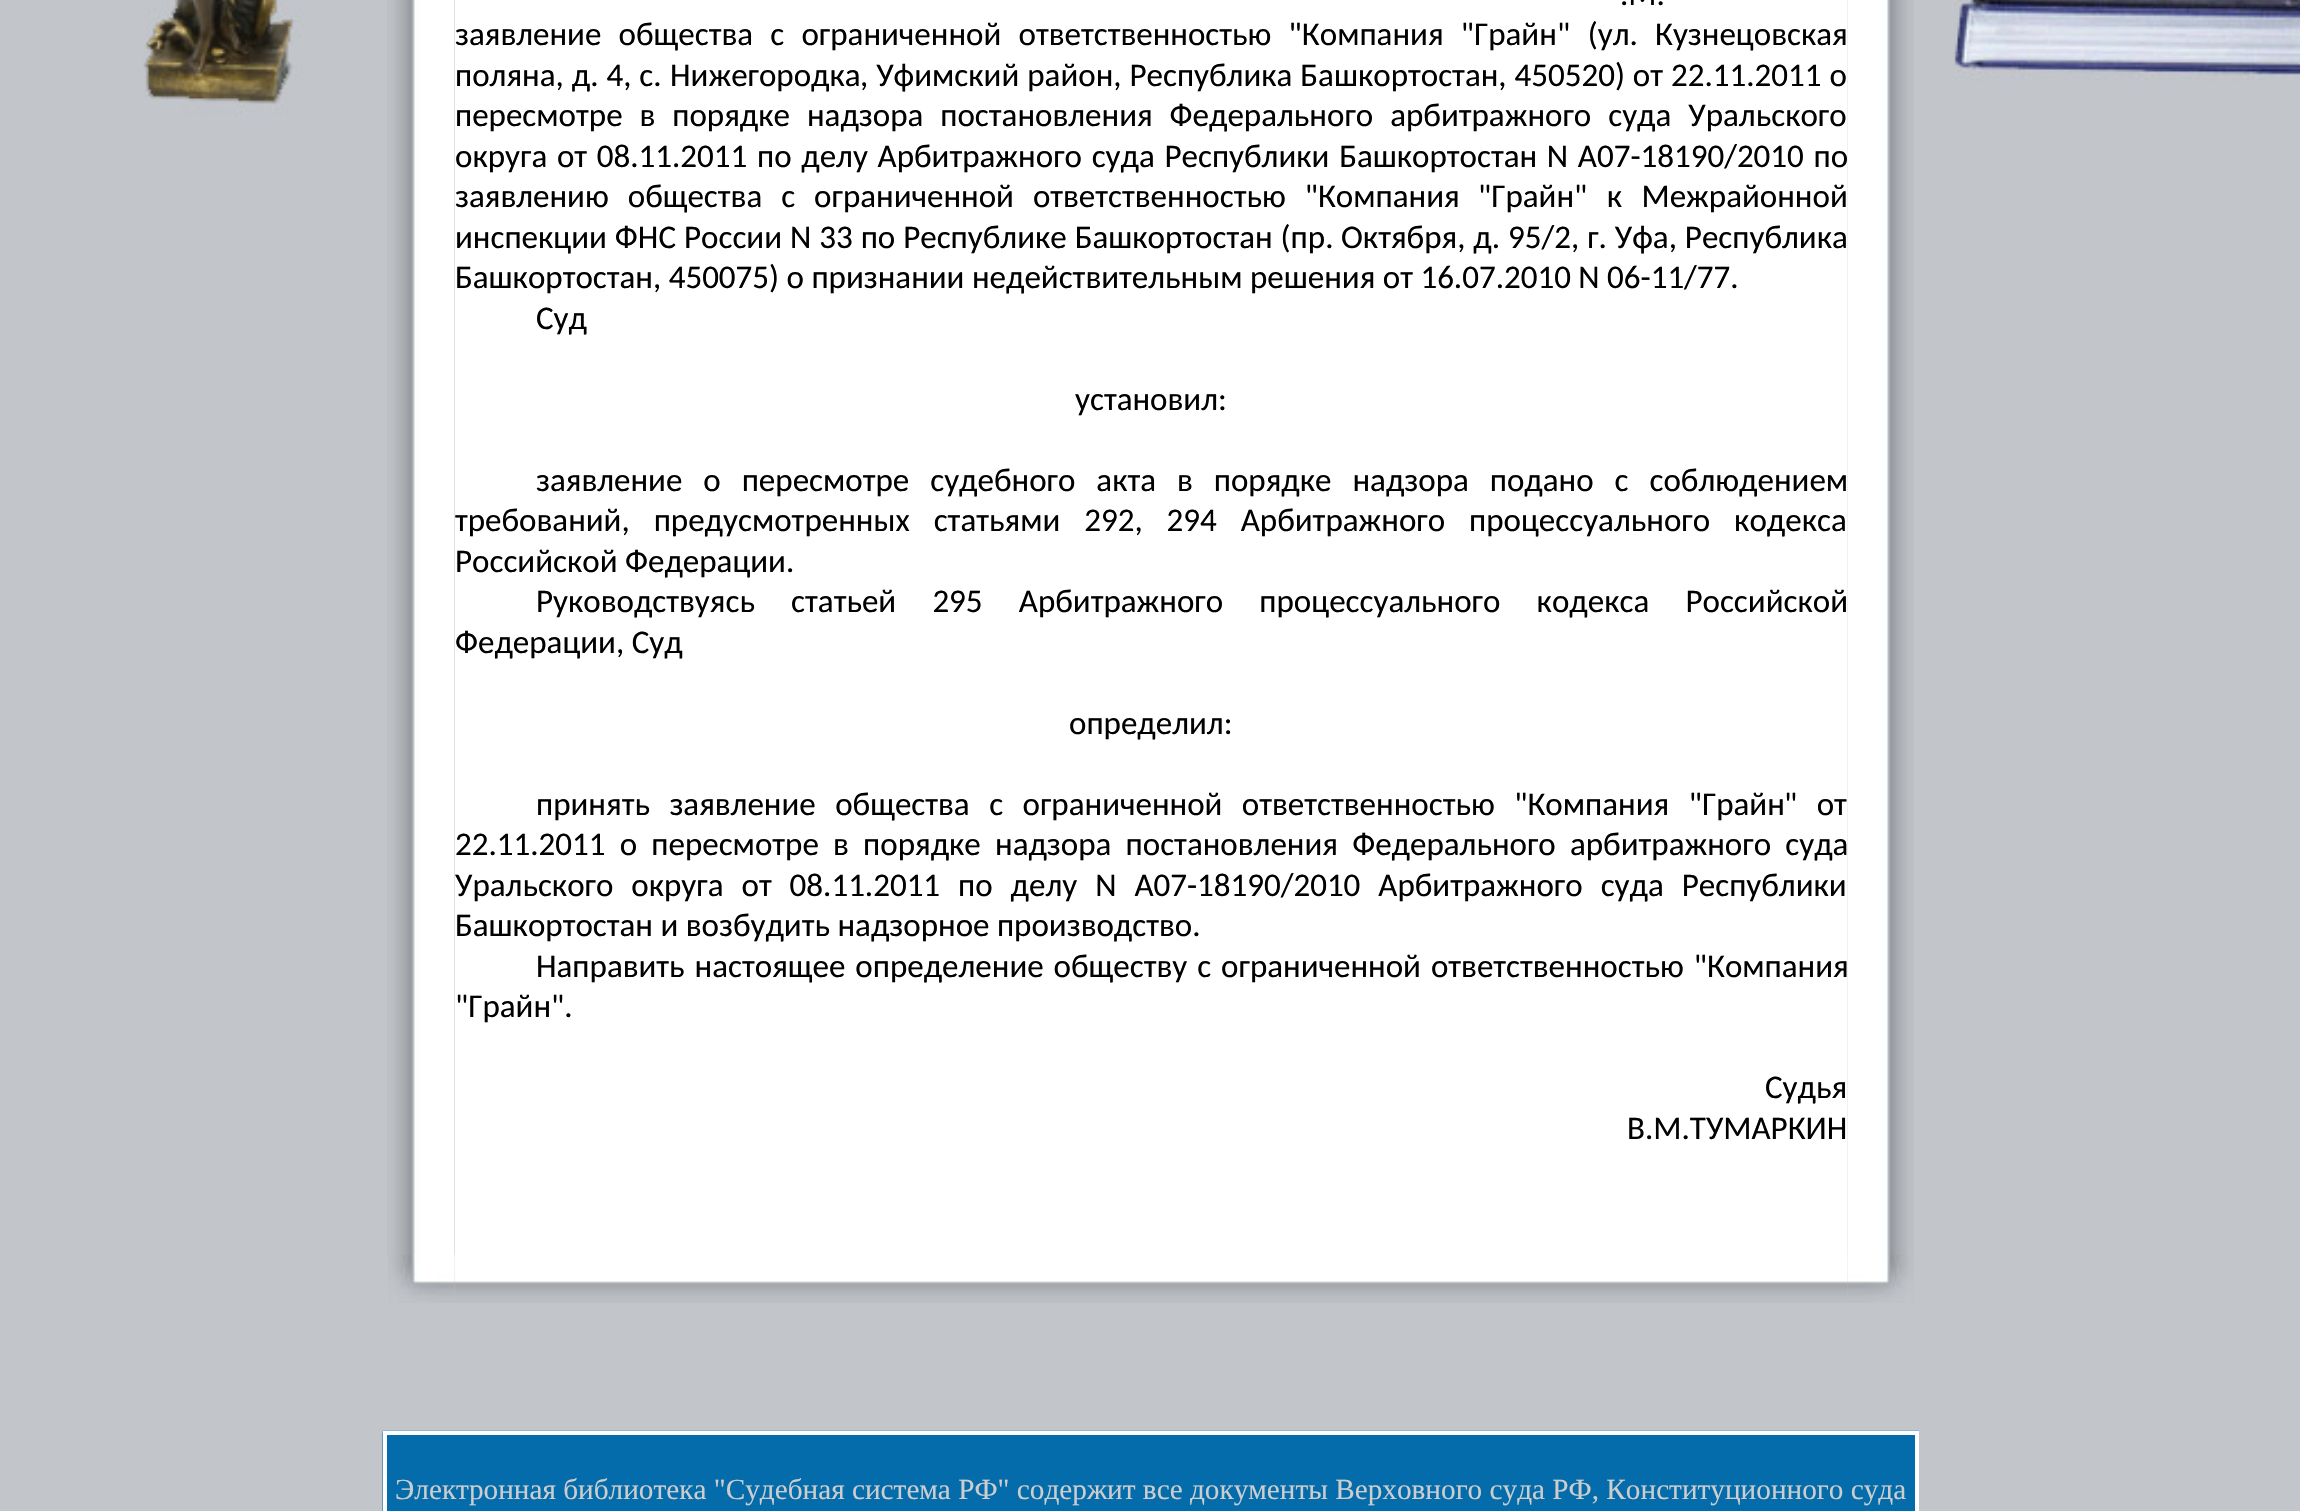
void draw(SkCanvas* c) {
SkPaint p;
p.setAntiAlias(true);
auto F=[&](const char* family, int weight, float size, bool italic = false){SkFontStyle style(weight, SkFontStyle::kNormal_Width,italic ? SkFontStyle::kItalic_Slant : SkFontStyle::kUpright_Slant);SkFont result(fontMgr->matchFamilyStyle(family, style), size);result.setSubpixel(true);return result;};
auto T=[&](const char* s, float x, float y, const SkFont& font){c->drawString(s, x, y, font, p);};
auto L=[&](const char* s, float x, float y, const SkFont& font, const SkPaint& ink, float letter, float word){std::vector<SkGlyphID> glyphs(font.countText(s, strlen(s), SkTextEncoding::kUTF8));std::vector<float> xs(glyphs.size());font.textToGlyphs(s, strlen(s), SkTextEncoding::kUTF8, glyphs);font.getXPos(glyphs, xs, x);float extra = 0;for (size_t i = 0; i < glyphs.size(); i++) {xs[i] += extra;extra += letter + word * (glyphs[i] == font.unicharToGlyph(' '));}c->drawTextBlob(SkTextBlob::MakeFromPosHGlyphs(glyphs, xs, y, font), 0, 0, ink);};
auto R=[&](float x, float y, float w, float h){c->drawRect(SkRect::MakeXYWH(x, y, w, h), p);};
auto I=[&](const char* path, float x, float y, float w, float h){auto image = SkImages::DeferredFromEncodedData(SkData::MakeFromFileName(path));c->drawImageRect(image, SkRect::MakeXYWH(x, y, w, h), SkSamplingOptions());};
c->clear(0xffc2c5ca);
I("1.png",143,0,160,116);
I("2.png",387,0,68,1255);
p.setColor(0xffffffff);
R(455,0,1392,1255);
auto f1 = F("Carlito",400,33);
p.setColor(0xff000000);
L(".М.",1620,5,f1,p,0,11);
L("заявление общества с ограниченной ответственностью \"Компания \"",455,45,f1,p,0,9.75);
T("Грайн",1474,45,f1);
L("\" (ул.",1557,45,f1,p,0,10);
T("Кузнецовская",1655,45,f1);
L("поляна, д. 4, с.",455,86,f1,p,0,.5);
T("Нижегородка",670,86,f1);
L(", Уфимский район, Республика Башкортостан, 450520) от 22.11.2011 о",860,86,f1,p,0,.5);
L("пересмотре в порядке надзора постановления Федерального арбитражного суда Уральского",455,126,f1,p,0,9.5);
L("округа от 08.11.2011 по делу Арбитражного суда Республики Башкортостан N А07-18190/2010 по",455,167,f1,p,0,2.25);
L("заявлению общества с ограниченной ответственностью \"Компания",455,207,f1,p,0,11.5);
T("\"Грайн",1478,207,f1);
L("\" к Межрайонной",1574,207,f1,p,0,12);
L("инспекции ФНС России N 33 по Республике Башкортостан (пр.",455,248,f1,p,0,.5);
L("Октября, д. 95/2, г. Уфа, Республика",1341,248,f1,p,0,.5);
T("Башкортостан, 450075) о признании недействительным решения от 16.07.2010 N 06-11/77.",455,288,f1);
T("Суд",536,329,f1);
T("установил:",1075,410,f1);
L("заявление о пересмотре судебного акта в порядке надзора подано с соблюдением",536,491,f1,p,0,13.5);
L("требований, предусмотренных статьями 292, 294 Арбитражного процессуального кодекса",455,531,f1,p,0,16.5);
T("Российской Федерации.",455,572,f1);
L("Руководствуясь статьей 295 Арбитражного процессуального кодекса Российской",536,612,f1,p,0,28.75);
T("Федерации, Суд",455,653,f1);
T("определил:",1069,734,f1);
L("принять заявление общества с ограниченной ответственностью \"Компания \"",536,815,f1,p,0,12);
T("Грайн",1702,815,f1);
L("\" от",1784,815,f1,p,0,12);
L("22.11.2011 о пересмотре в порядке надзора постановления Федерального арбитражного суда",455,855,f1,p,0,6.75);
L("Уральского округа от 08.11.2011 по делу N А07-18190/2010 Арбитражного суда Республики",455,896,f1,p,0,10.5);
T("Башкортостан и возбудить надзорное производство.",455,936,f1);
L("Направить настоящее определение обществу с ограниченной ответственностью \"Компания",536,977,f1,p,0,2.5);
T("\"Грайн\".",455,1017,f1);
T("Судья",1765,1098,f1);
T("В.М.ТУМАРКИН",1627,1139,f1);
I("3.png",1847,0,67,1255);
I("5.png",454,1255,1394,48);
I("4.png",388,1255,67,48);
I("6.png",1847,1255,67,48);
I("7.png",382,1430,1537,81);
p.setStroke(true);
p.setStrokeWidth(2);
p.setColor(0xffffffff);
c->drawRect(SkRect::MakeXYWH(384,1432,1534,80),p);
c->drawRect(SkRect::MakeXYWH(386,1434,1530,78),p);
auto f2 = F("Liberation Serif",400,29.25);
p.setStroke(false);
p.setColor(0xffcdcdcd);
T("Электронная библиотека \"Судебная система РФ\" содержит все документы Верховного суда РФ, Конституционного суда",395,1499,f2);
I("8.png",1954,0,346,81);
}
